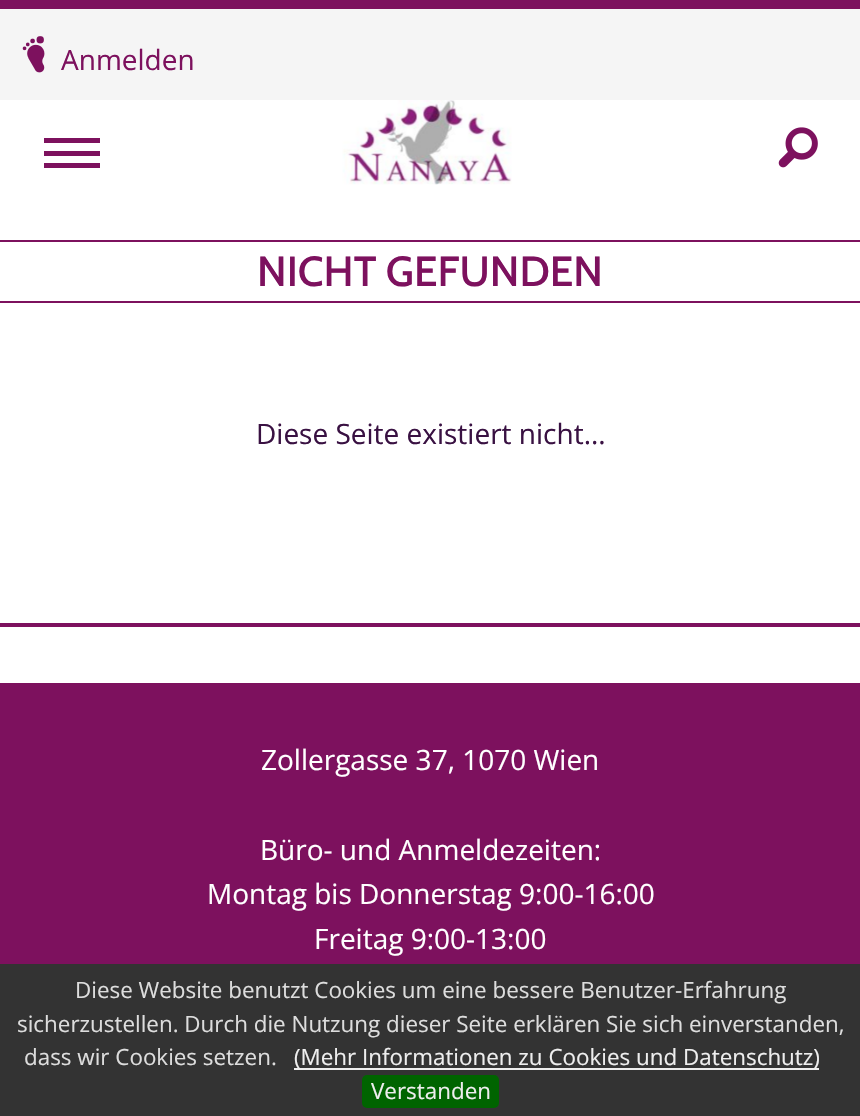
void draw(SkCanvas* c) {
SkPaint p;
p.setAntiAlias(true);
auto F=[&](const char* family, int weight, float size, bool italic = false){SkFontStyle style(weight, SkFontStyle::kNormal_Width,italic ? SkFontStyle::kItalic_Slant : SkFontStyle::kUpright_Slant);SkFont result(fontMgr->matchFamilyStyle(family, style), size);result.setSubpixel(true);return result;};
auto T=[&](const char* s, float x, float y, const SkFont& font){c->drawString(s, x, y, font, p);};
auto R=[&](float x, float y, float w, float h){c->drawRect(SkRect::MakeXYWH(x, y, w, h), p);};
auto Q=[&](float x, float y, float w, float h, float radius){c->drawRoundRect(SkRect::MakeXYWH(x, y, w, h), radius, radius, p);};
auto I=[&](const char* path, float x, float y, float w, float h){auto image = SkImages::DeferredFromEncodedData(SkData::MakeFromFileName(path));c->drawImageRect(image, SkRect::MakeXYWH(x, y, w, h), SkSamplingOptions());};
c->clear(0xffffffff);
p.setColor(0xfff5f5f5);
R(0,9,860,91);
p.setColor(0xff7d115e);
R(0,0,860,9);
I("1.png",22,36,23,37);
auto f1 = F("Open Sans",400,28);
T("Anmelden",61,70,f1);
R(44,163,56,5);
R(44,151,56,5);
R(44,138,56,5);
I("2.png",342,100,170,85);
I("3.png",778,127,40,41);
R(0,240,860,2);
R(0,301,860,2);
auto f2 = F("Cabin",500,42);
T("NICHT GEFUNDEN",257,286,f2);
p.setColor(0xff391142);
T("Diese Seite existiert nicht...",256,444,f1);
p.setColor(0xff7d115e);
R(0,623,860,4);
R(0,683,860,281);
p.setColor(0xffffffff);
T("Zollergasse 37, 1070 Wien",261,770,f1);
T("Büro- und Anmeldezeiten:",260,860,f1);
T("Montag bis Donnerstag 9:00-16:00",207,904,f1);
T("Freitag 9:00-13:00",314,949,f1);
p.setColor(0xff333333);
R(0,964,860,152);
auto f3 = F("Open Sans",400,22.4);
p.setColor(0xffdddddd);
T("Diese Website benutzt Cookies um eine bessere Benutzer-Erfahrung",75,998,f3);
T("sicherzustellen. Durch die Nutzung dieser Seite erklären Sie sich einverstanden,",17,1032,f3);
T("dass wir Cookies setzen.",24,1065,f3);
p.setColor(0xffeeeeee);
R(294,1068,525,2);
T("(Mehr Informationen zu Cookies und Datenschutz)",294,1065,f3);
p.setColor(0xff006400);
Q(362,1075,137,33,5);
p.setColor(0xffeeeeee);
T("Verstanden",371,1099,f3);
}
